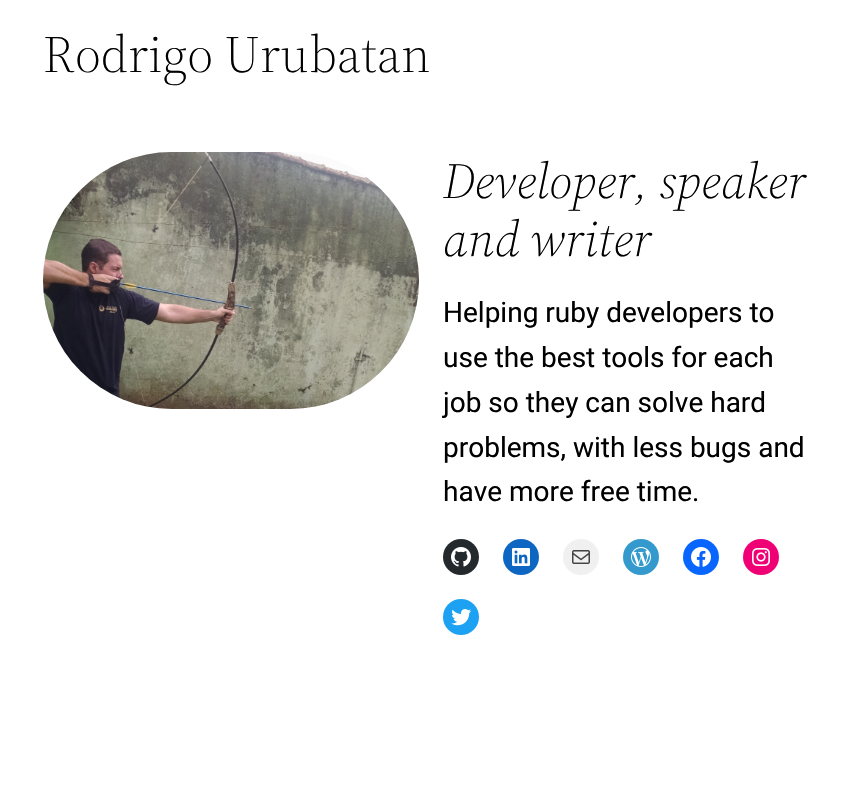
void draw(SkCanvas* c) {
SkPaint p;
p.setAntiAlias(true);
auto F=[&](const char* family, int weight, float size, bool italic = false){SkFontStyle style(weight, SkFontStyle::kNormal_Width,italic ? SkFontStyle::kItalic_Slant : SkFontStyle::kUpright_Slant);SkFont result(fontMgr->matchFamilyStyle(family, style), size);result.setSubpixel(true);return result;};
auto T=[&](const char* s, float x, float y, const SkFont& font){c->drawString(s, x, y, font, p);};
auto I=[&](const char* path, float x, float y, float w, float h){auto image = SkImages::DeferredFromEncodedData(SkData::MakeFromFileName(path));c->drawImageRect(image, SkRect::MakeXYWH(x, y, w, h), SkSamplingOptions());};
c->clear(0xffffffff);
auto f1 = F("Source Serif 4",300,51.75);
p.setColor(0xff000000);
T("Rodrigo Urubatan",43,72,f1);
I("1.png",43,152,376,257);
auto f2 = F("Source Serif 4",300,50,true);
T("Developer, speaker",443,198,f2);
T("and writer",443,256,f2);
auto f3 = F("Roboto",400,28);
T("Helping ruby developers to",443,322,f3);
T("use the best tools for each",443,367,f3);
T("job so they can solve hard",443,412,f3);
T("problems, with less bugs and",443,457,f3);
T("have more free time.",443,501,f3);
p.setColor(0xff24292d);
c->drawCircle(461,557,18,p);
I("2.png",451,547,20,20);
p.setColor(0xff0d66c2);
c->drawCircle(521,557,18,p);
I("3.png",512,548,18,18);
p.setColor(0xfff0f0f0);
c->drawCircle(581,557,18,p);
I("4.png",572,550,18,14);
p.setColor(0xff3499cd);
c->drawCircle(641,557,18,p);
I("5.png",631,547,20,20);
p.setColor(0xff0866ff);
c->drawCircle(701,557,18,p);
I("6.png",691,547,20,20);
p.setColor(0xfff00075);
c->drawCircle(761,557,18,p);
I("7.png",752,548,18,18);
p.setColor(0xff1da1f2);
c->drawCircle(461,617,18,p);
I("8.png",451,609,20,17);
}
